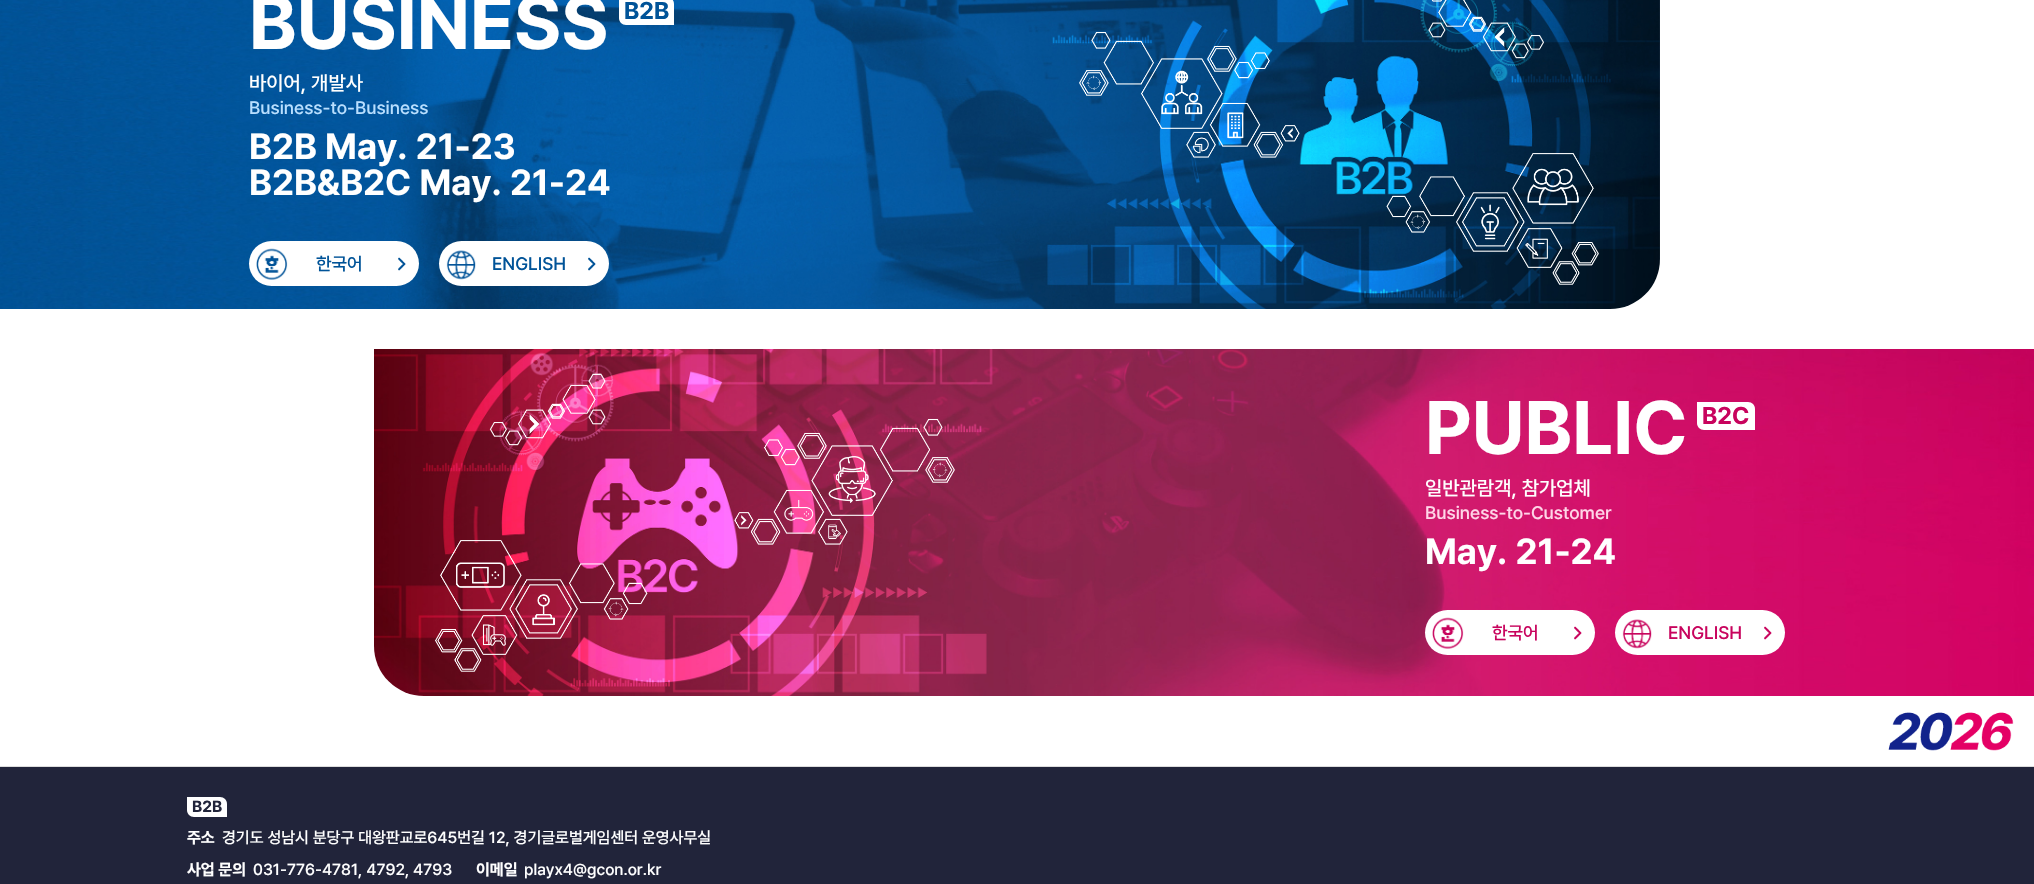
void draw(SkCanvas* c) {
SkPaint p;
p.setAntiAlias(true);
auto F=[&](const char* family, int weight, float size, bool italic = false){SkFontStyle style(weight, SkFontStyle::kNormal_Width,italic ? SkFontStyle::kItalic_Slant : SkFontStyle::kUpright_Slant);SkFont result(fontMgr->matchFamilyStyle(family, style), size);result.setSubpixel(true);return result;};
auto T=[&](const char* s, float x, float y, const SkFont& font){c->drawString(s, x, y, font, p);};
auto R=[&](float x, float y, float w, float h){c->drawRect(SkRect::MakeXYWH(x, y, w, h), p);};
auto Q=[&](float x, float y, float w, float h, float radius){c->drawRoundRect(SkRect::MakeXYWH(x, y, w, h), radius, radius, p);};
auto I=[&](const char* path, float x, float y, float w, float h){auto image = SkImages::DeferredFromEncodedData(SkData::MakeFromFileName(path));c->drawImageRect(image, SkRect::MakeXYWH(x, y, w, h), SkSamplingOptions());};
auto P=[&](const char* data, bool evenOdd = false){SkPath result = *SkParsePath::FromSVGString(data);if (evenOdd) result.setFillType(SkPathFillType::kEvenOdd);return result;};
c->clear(0xffffffff);
I("1.png",0,0,1660,309);
auto f1 = F("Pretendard",700,75);
p.setColor(0xffffffff);
T("BUSINESS",249,49,f1);
c->drawPath(P("M619-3h48c4 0 7 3 7 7v21h-48c-4 0-7-3-7-7z"),p);
auto f2 = F("Pretendard",700,24);
p.setColor(0xff005398);
T("B2B",624,19,f2);
auto f3 = F("Pretendard",500,20);
p.setColor(0xffffffff);
T("바이어, 개발사",249,90,f3);
auto f4 = F("Pretendard",500,18);
p.setColor(0xffb9dfff);
T("Business-to-Business",249,114,f4);
auto f5 = F("Pretendard",700,36);
p.setColor(0xffffffff);
T("B2B May. 21-23",249,159,f5);
T("B2B&B2C May. 21-24",249,195,f5);
Q(249,241,170,45,22.5);
I("2.png",256,248,32,32);
p.setColor(0xff005398);
T("한국어",316,270,f4);
I("3.png",398,257,8,14);
p.setColor(0xffffffff);
Q(439,241,170,45,22.5);
I("4.png",446,250,30,30);
p.setColor(0xff005398);
T("ENGLISH",492,270,f4);
I("5.png",588,257,8,14);
I("6.png",1079,0,520,285);
I("7.png",374,349,1660,347);
I("8.png",435,373,520,299);
p.setColor(0xffffffff);
T("PUBLIC",1425,454,f1);
c->drawPath(P("M1697 402h51c4 0 7 3 7 7v21h-51c-4 0-7-3-7-7z"),p);
p.setColor(0xffc8035d);
T("B2C",1702,424,f2);
p.setColor(0xffffffff);
T("일반관람객, 참가업체",1425,495,f3);
p.setColor(0xffffd6e8);
T("Business-to-Customer",1425,519,f4);
p.setColor(0xffffffff);
T("May. 21-24",1425,564,f5);
Q(1425,610,170,45,22.5);
I("9.png",1432,617,32,32);
p.setColor(0xffc8035d);
T("한국어",1492,639,f4);
I("10.png",1574,626,8,14);
p.setColor(0xffffffff);
Q(1615,610,170,45,22.5);
I("11.png",1622,619,30,30);
p.setColor(0xffc8035d);
T("ENGLISH",1668,639,f4);
I("10.png",1764,626,8,14);
I("12.png",1888,712,126,39);
p.setColor(0xff21243a);
R(0,767,2034,117);
p.setColor(0xffdddddd);
R(0,766,2034,1);
p.setColor(0xffffffff);
c->drawPath(P("M187 797h33c4 0 7 3 7 7v13h-33c-4 0-7-3-7-7z"),p);
auto f6 = F("Pretendard",700,16);
p.setColor(0xff21243a);
T("B2B",192,812,f6);
p.setColor(0xffffffff);
T("주소",187,843,f6);
auto f7 = F("Pretendard",500,16);
T("경기도 성남시 분당구 대왕판교로645번길 12, 경기글로벌게임센터 운영사무실",222,843,f7);
T("사업 문의",187,875,f6);
T("031-776-4781, 4792, 4793",253,875,f7);
T("이메일",476,875,f6);
T("playx4@gcon.or.kr",524,875,f7);
}
